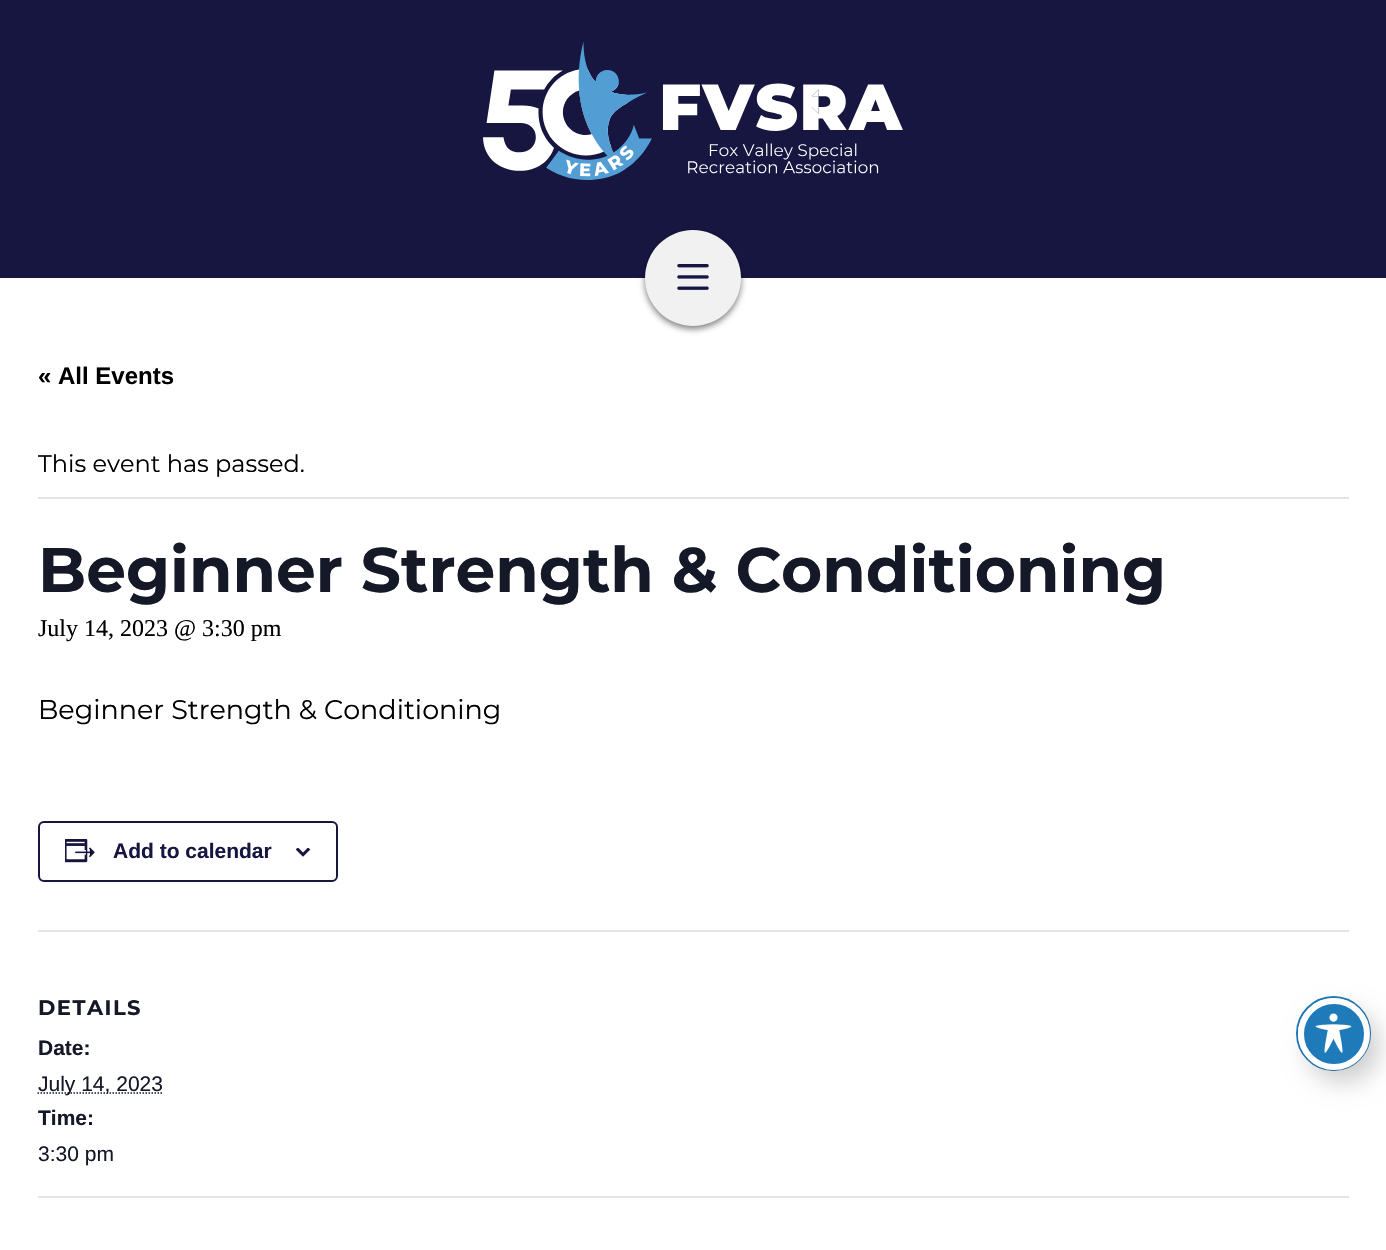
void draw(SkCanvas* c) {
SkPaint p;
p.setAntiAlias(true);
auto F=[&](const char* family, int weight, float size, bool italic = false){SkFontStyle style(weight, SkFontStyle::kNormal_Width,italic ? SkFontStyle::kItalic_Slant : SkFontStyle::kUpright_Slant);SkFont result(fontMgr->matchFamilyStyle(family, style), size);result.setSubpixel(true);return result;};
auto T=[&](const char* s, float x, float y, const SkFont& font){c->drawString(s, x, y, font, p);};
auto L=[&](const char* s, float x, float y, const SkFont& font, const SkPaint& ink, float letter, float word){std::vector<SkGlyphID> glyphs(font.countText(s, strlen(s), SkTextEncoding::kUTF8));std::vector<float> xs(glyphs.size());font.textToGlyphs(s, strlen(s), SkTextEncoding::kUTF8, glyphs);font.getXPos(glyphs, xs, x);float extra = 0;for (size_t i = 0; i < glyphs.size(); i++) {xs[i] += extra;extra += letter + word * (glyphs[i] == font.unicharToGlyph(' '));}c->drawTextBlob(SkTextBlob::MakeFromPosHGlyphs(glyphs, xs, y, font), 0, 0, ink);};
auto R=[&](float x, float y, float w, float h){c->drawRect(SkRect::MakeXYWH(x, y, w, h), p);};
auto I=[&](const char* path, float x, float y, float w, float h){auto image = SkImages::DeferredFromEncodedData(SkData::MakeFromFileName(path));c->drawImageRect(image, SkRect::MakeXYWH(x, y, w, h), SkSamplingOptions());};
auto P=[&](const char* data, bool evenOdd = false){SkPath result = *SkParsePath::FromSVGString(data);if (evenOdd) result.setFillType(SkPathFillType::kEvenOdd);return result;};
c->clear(0xffffffff);
p.setColor(0xff171641);
R(0,0,1386,278);
I("1.png",483,42,420,138);
p.setColor(0x80000000);
p.setMaskFilter(SkMaskFilter::MakeBlur(kNormal_SkBlurStyle, 3));
c->drawRoundRect(SkRect::MakeXYWH(645,233,96,96),48,48,p);
p.setMaskFilter(nullptr);
p.setColor(0xfff1f1f1);
c->drawCircle(693,278,48,p);
I("2.png",677,264,32,26);
auto f1 = F("Liberation Sans",700,24);
p.setColor(0xff000000);
T("« All Events",38,384,f1);
p.setColor(0xffe4e4e4);
R(38,497,1311,2);
auto f2 = F("Montserrat",400,24);
p.setColor(0xff000000);
T("This event has passed.",38,472,f2);
auto f3 = F("Montserrat",700,63);
p.setColor(0xff141827);
T("Beginner Strength & Conditioning",38,592,f3);
auto f4 = F("Liberation Serif",400,24);
p.setColor(0xff000000);
T("July 14, 2023 @ 3:30 pm",38,636,f4);
auto f5 = F("Montserrat",400,27);
T("Beginner Strength & Conditioning",38,719,f5);
p.setStroke(true);
p.setStrokeWidth(2);
p.setColor(0xff171641);
c->drawRoundRect(SkRect::MakeXYWH(39,822,298,59),5,5,p);
I("3.png",65,839,30,24);
auto f6 = F("Liberation Sans",700,21);
p.setStroke(false);
T("Add to calendar",113,858,f6);
I("4.png",296,848,15,9);
p.setColor(0xffe4e4e4);
R(38,930,1311,2);
auto f7 = F("Montserrat",700,21);
p.setColor(0xff141827);
L("DETAILS",38,1015,f7,p,1.5,0);
T("Date:",38,1055,f6);
p.setStroke(true);
p.setStrokeWidth(1.5);
p.setPathEffect(SkDashPathEffect::Make({{1.5f,1.5f}}, 0));
c->drawPath(P("M37.5 1093h125"),p);
p.setPathEffect(nullptr);
auto f8 = F("Liberation Sans",400,21);
p.setStroke(false);
T("July 14, 2023",38,1091,f8);
c->save();
c->clipRect(SkRect::MakeXYWH(38,690,1311,506));
T("Time:",38,1125,f6);
c->restore();
T("3:30 pm",38,1161,f8);
p.setColor(0xffe4e4e4);
R(38,1196,1311,2);
p.setStroke(true);
p.setStrokeWidth(2);
p.setColor(0xff1e7ab9);
c->drawCircle(1333.5,1033.5,36.5,p);
p.setStroke(false);
p.setColor(0x33000000);
p.setMaskFilter(SkMaskFilter::MakeBlur(kNormal_SkBlurStyle, 12));
c->drawRoundRect(SkRect::MakeXYWH(1307,1010,72,72),36,36,p);
p.setMaskFilter(nullptr);
p.setColor(0xff1e7ab9);
c->drawCircle(1334,1034,33,p);
p.setStroke(true);
p.setStrokeWidth(6);
p.setColor(0xffffffff);
c->drawCircle(1334,1034,33,p);
I("5.png",1315,1013,37,40);
}
